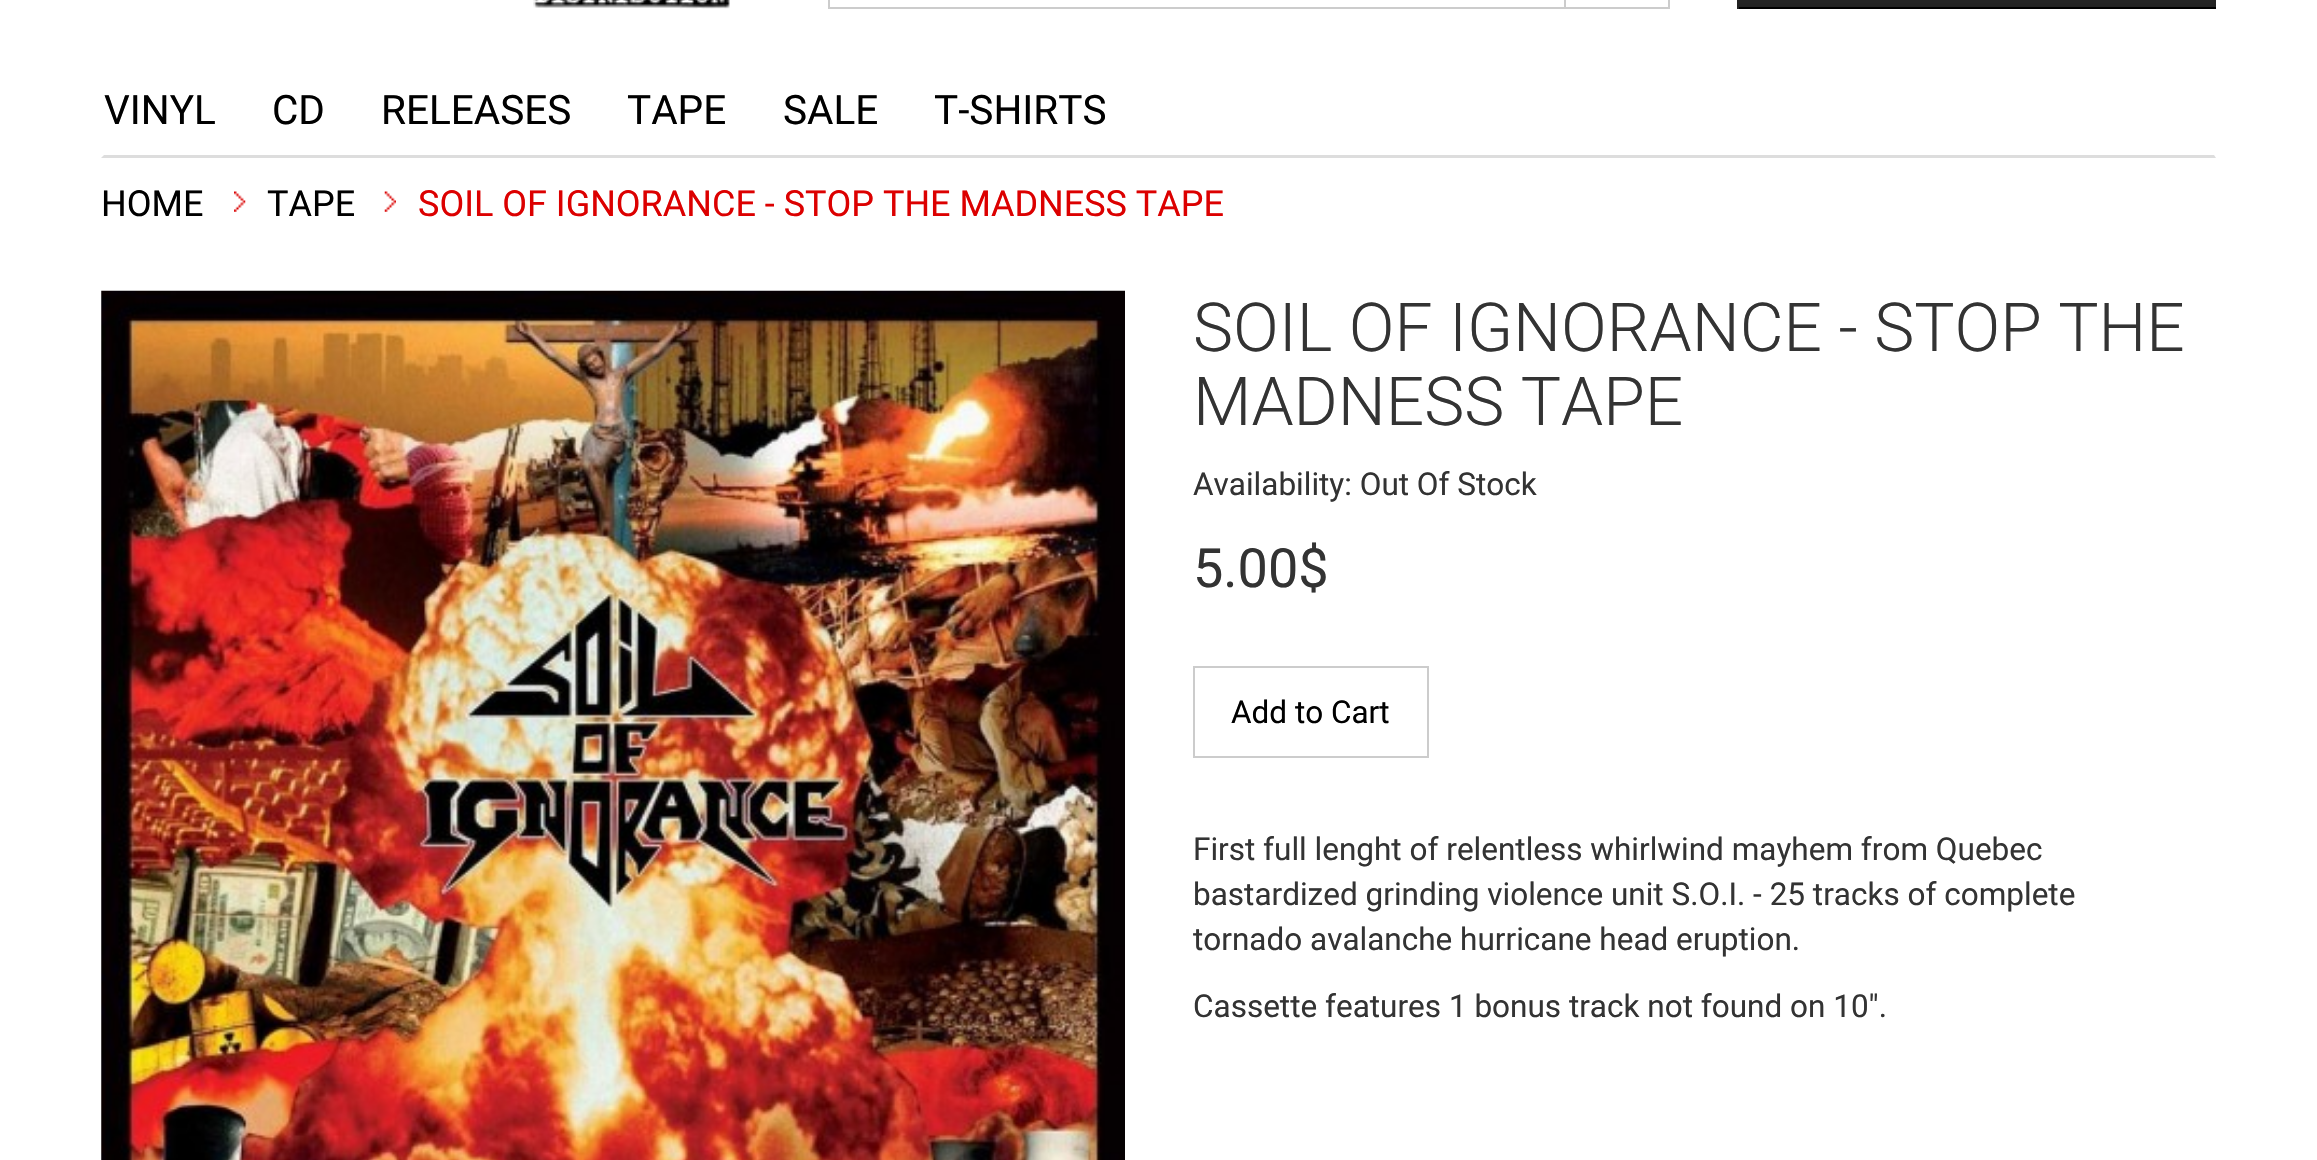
void draw(SkCanvas* c) {
SkPaint p;
p.setAntiAlias(true);
auto F=[&](const char* family, int weight, float size, bool italic = false){SkFontStyle style(weight, SkFontStyle::kNormal_Width,italic ? SkFontStyle::kItalic_Slant : SkFontStyle::kUpright_Slant);SkFont result(fontMgr->matchFamilyStyle(family, style), size);result.setSubpixel(true);return result;};
auto T=[&](const char* s, float x, float y, const SkFont& font){c->drawString(s, x, y, font, p);};
auto R=[&](float x, float y, float w, float h){c->drawRect(SkRect::MakeXYWH(x, y, w, h), p);};
auto I=[&](const char* path, float x, float y, float w, float h){auto image = SkImages::DeferredFromEncodedData(SkData::MakeFromFileName(path));c->drawImageRect(image, SkRect::MakeXYWH(x, y, w, h), SkSamplingOptions());};
auto P=[&](const char* data, bool evenOdd = false){SkPath result = *SkParsePath::FromSVGString(data);if (evenOdd) result.setFillType(SkPathFillType::kEvenOdd);return result;};
c->clear(0xffffffff);
I("1.png",533,0,197,9);
p.setStroke(true);
p.setStrokeWidth(2);
p.setColor(0xffcccccc);
c->drawRect(SkRect::MakeXYWH(1565,-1,104,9),p);
c->drawRect(SkRect::MakeXYWH(829,-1,736,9),p);
p.setStroke(false);
{
const SkColor colors[] = {0xff444444,0xff222222};
const float stops[] = {0,1};
const SkPoint ends[] = {{1977,-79}, {1977,6.8}};
p.setShader(SkGradientShader::MakeLinear(ends, colors, stops, 2, SkTileMode::kClamp));
p.setAlpha(255);
}
R(1737,0,479,7);
p.setShader(nullptr);
p.setColor(0xff222222);
R(2214,0,2,9);
p.setColor(0xff000000);
R(1737,7,479,2);
p.setColor(0xff222222);
R(1737,0,2,9);
p.setColor(0xffdddddd);
c->drawPath(P("M2216 158h-2115l3-3h2110z"),p);
auto f1 = F("Roboto",400,40.5);
p.setColor(0xff000000);
T("VINYL",104,124,f1);
T("CD",272,124,f1);
T("RELEASES",381,124,f1);
T("TAPE",627,124,f1);
T("SALE",783,124,f1);
T("T-SHIRTS",934,124,f1);
auto f2 = F("Roboto",400,36);
T("HOME",101,216,f2);
I("2.png",234,191,12,21);
T("TAPE",267,216,f2);
I("3.png",384,191,12,21);
p.setColor(0xffdc0000);
T("SOIL OF IGNORANCE - STOP THE MADNESS TAPE",418,216,f2);
I("4.png",101,290,1024,870);
auto f3 = F("Roboto",300,67.5);
p.setColor(0xff333333);
T("SOIL OF IGNORANCE - STOP THE",1193,351,f3);
T("MADNESS TAPE",1193,425,f3);
auto f4 = F("Roboto",400,31.5);
T("Availability: Out Of Stock",1193,495,f4);
auto f5 = F("Roboto",400,54);
T("5.00$",1193,587,f5);
p.setStroke(true);
p.setColor(0xffcccccc);
c->drawRect(SkRect::MakeXYWH(1194,667,234,90),p);
p.setStroke(false);
p.setColor(0xff000000);
T("Add to Cart",1231,723,f4);
p.setColor(0xff333333);
T("First full lenght of relentless whirlwind mayhem from Quebec",1193,860,f4);
T("bastardized grinding violence unit S.O.I. - 25 tracks of complete",1193,905,f4);
T("tornado avalanche hurricane head eruption.",1193,950,f4);
T("Cassette features 1 bonus track not found on 10\".",1193,1017,f4);
}
